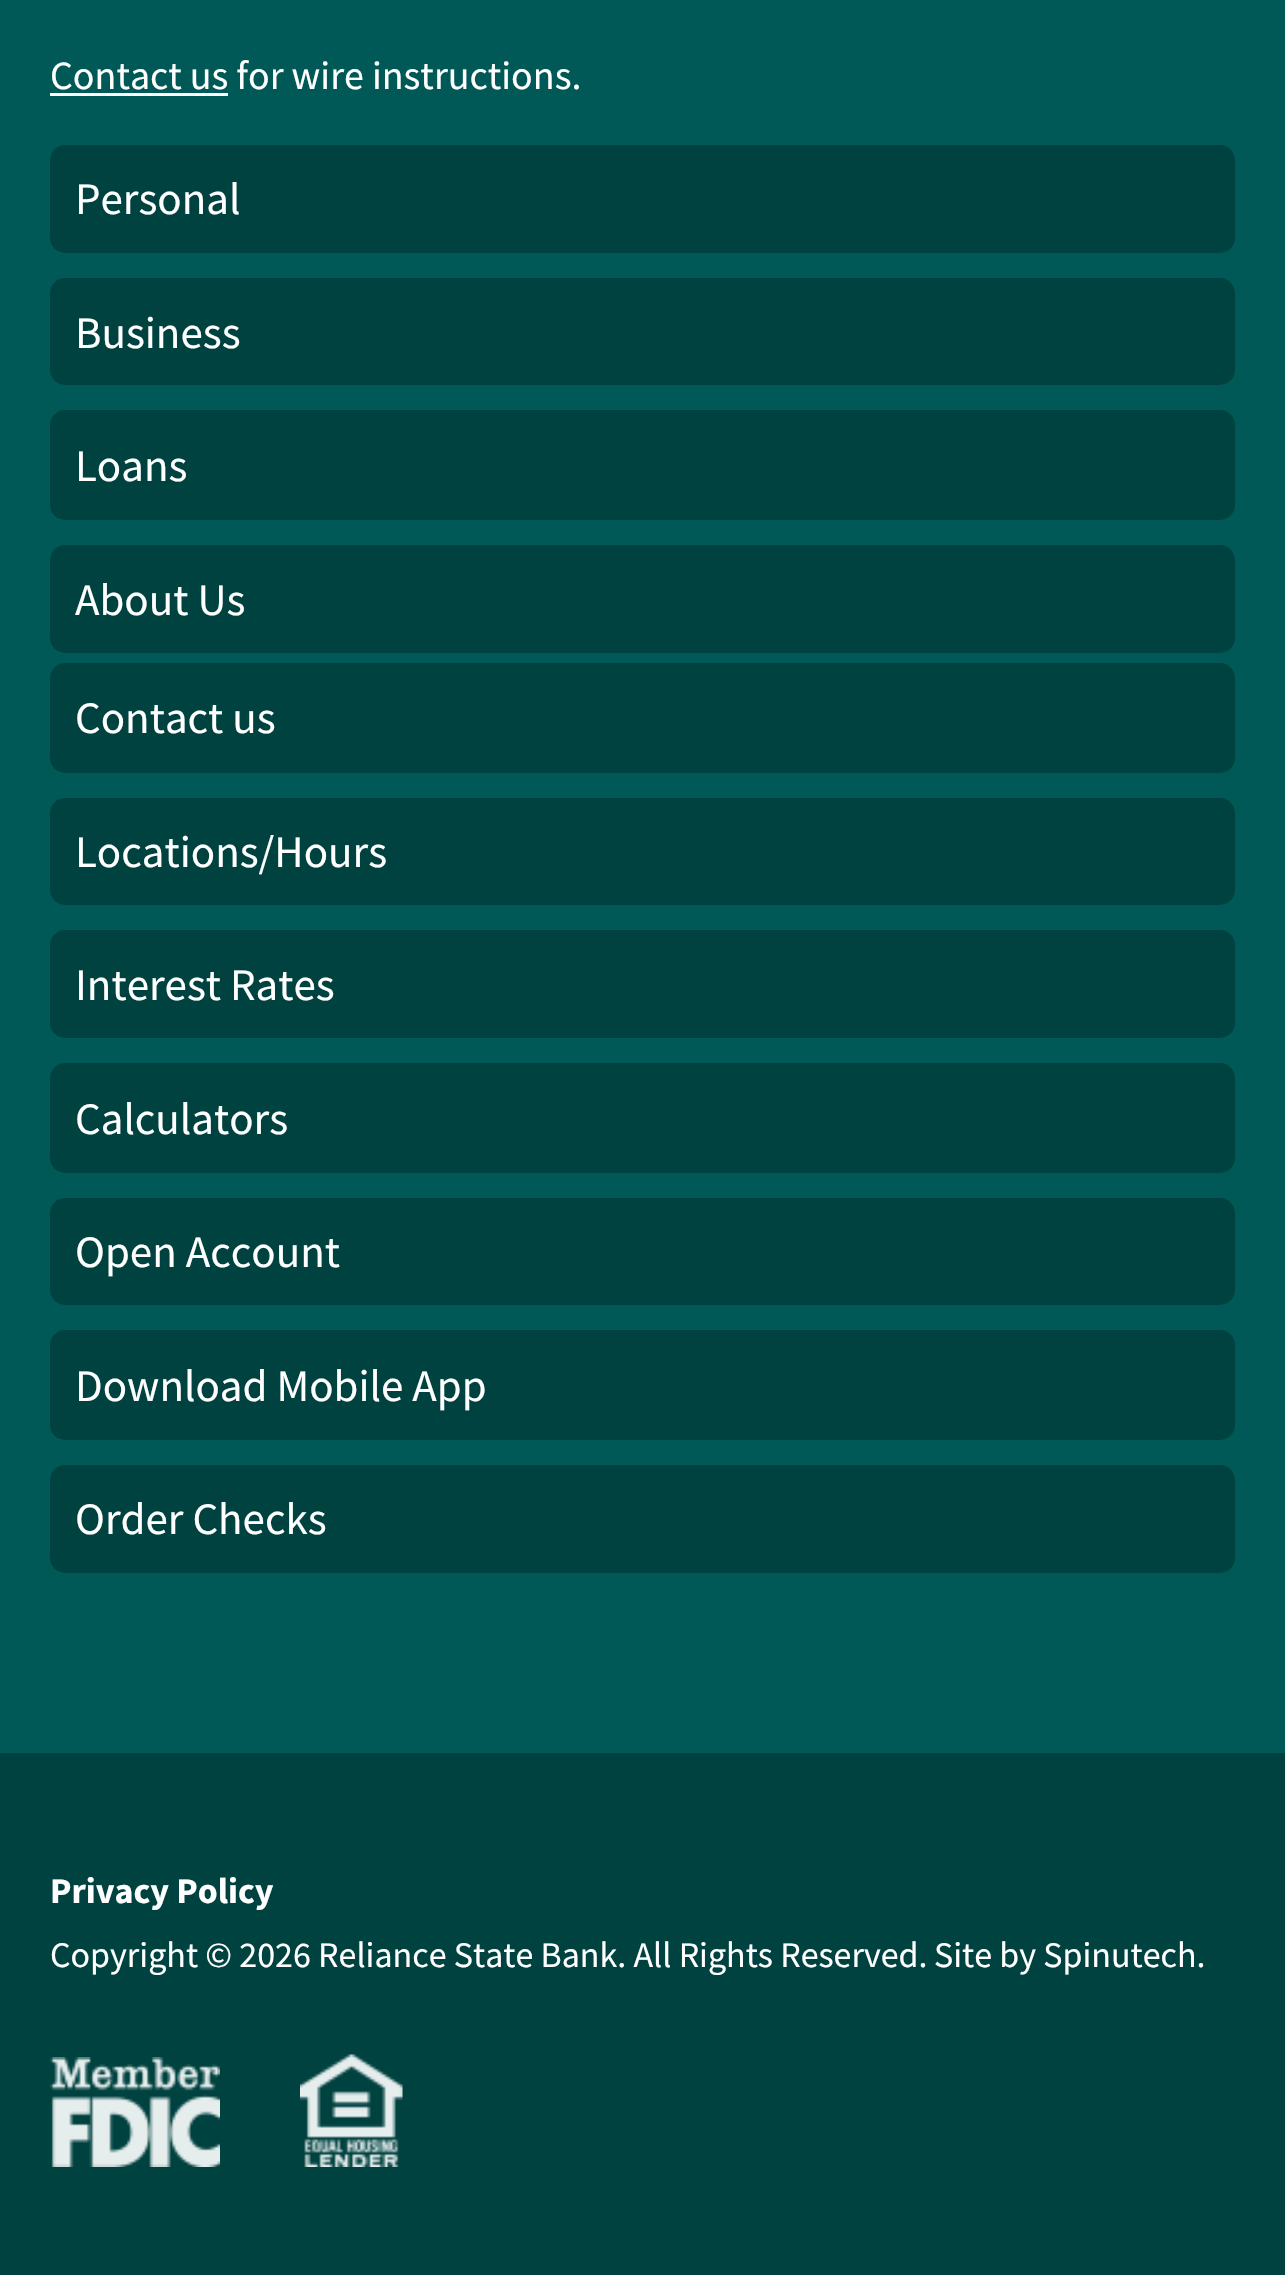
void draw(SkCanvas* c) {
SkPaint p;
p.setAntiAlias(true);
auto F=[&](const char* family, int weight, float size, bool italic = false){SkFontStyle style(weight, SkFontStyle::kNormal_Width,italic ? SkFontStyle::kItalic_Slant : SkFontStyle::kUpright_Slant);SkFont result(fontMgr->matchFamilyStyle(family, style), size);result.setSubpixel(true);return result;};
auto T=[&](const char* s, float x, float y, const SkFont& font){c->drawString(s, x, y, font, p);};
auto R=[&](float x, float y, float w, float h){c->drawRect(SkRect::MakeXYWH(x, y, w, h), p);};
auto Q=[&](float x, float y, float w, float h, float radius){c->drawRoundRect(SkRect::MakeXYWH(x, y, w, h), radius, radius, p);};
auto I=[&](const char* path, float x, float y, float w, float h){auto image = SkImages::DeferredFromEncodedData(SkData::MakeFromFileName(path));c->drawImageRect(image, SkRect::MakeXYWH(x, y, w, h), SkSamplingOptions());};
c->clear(0xff005957);
auto f1 = F("Source Sans Pro",400,40);
p.setColor(0xffffffff);
T("Contact us for wire instructions.",50,89,f1);
R(50,93,178,3);
p.setColor(0xff004240);
Q(50,145,1185,108,15);
auto f2 = F("Source Sans Pro",400,45);
p.setColor(0xffffffff);
T("Personal",75,214,f2);
p.setColor(0xff004240);
Q(50,278,1185,107,15);
p.setColor(0xffffffff);
T("Business",75,348,f2);
p.setColor(0xff004240);
Q(50,410,1185,110,15);
p.setColor(0xffffffff);
T("Loans",75,481,f2);
p.setColor(0xff004240);
Q(50,545,1185,108,15);
p.setColor(0xffffffff);
T("About Us",75,615,f2);
p.setColor(0xff004240);
Q(50,663,1185,110,15);
p.setColor(0xffffffff);
T("Contact us",75,733,f2);
p.setColor(0xff004240);
Q(50,798,1185,107,15);
p.setColor(0xffffffff);
T("Locations/Hours",75,867,f2);
p.setColor(0xff004240);
Q(50,930,1185,108,15);
p.setColor(0xffffffff);
T("Interest Rates",75,1000,f2);
p.setColor(0xff004240);
Q(50,1063,1185,110,15);
p.setColor(0xffffffff);
T("Calculators",75,1134,f2);
p.setColor(0xff004240);
Q(50,1198,1185,107,15);
p.setColor(0xffffffff);
T("Open Account",75,1267,f2);
p.setColor(0xff004240);
Q(50,1330,1185,110,15);
p.setColor(0xffffffff);
T("Download Mobile App",75,1401,f2);
p.setColor(0xff004240);
Q(50,1465,1185,108,15);
p.setColor(0xffffffff);
T("Order Checks",75,1534,f2);
p.setColor(0xff004240);
R(0,1753,1285,522);
auto f3 = F("Source Sans Pro",700,36);
p.setColor(0xffffffff);
T("Privacy Policy",50,1903,f3);
auto f4 = F("Source Sans Pro",400,36);
T("Copyright © 2026 Reliance State Bank. All Rights Reserved.",50,1967,f4);
T("Site by Spinutech.",934,1967,f4);
I("1.png",50,2057,170,110);
I("2.png",300,2054,103,113);
}
